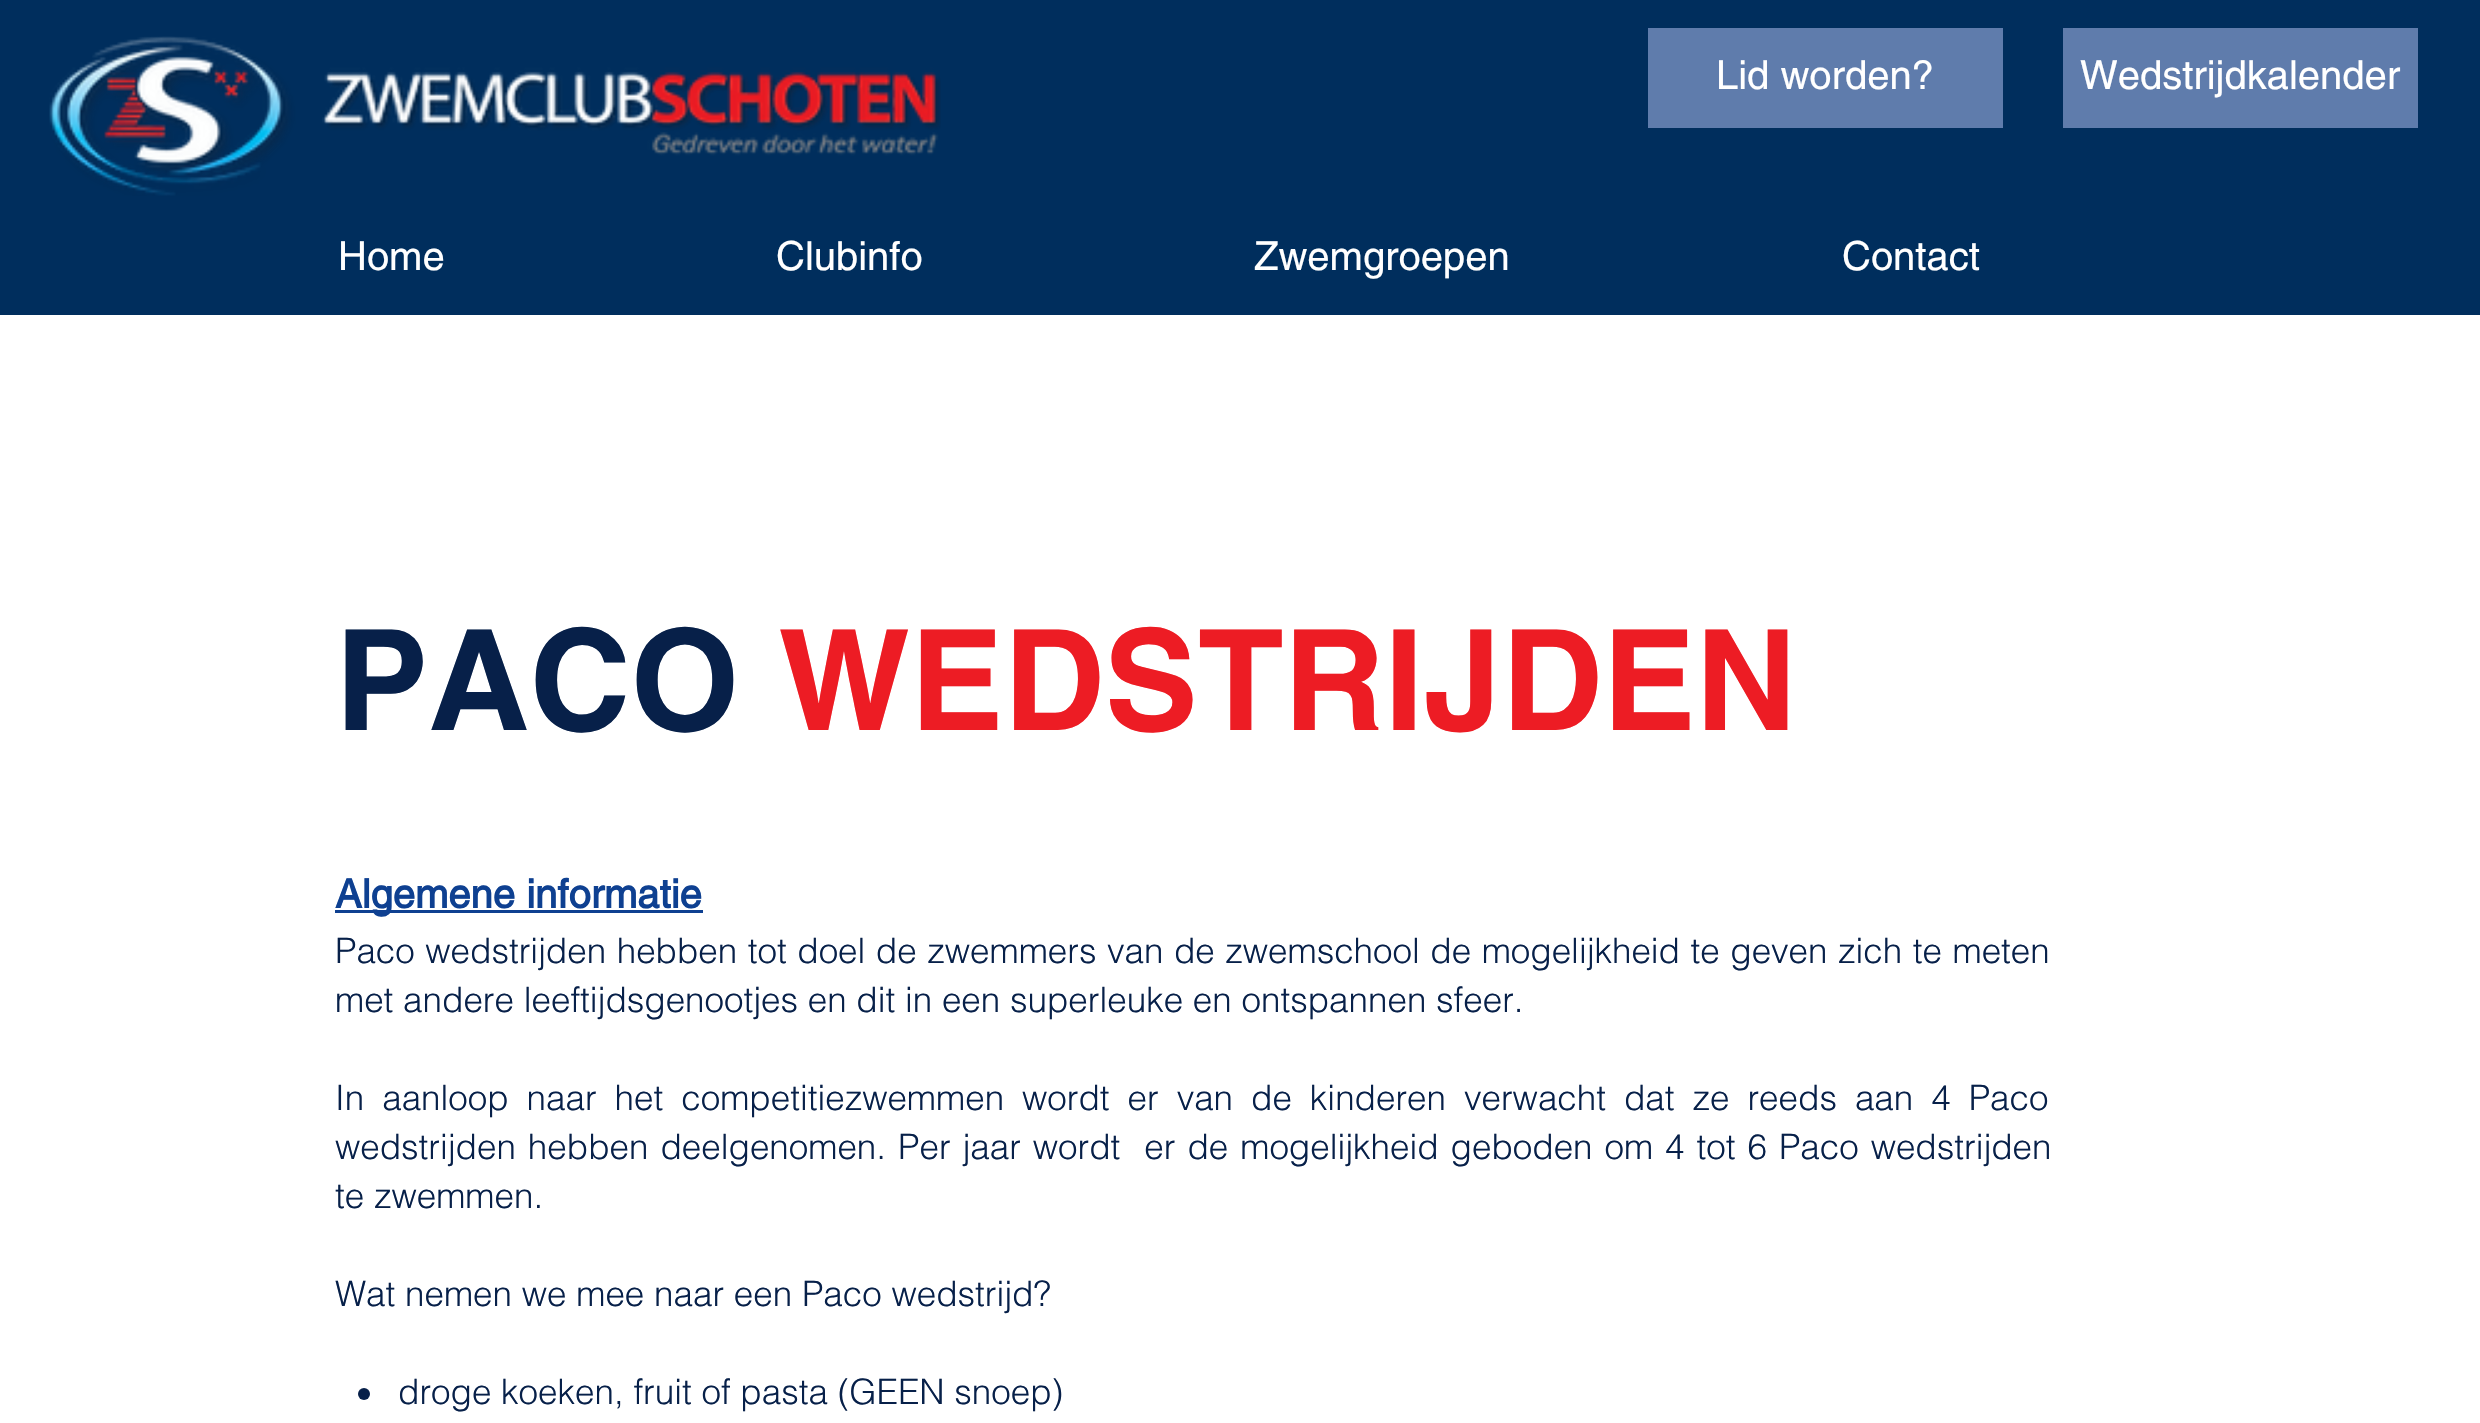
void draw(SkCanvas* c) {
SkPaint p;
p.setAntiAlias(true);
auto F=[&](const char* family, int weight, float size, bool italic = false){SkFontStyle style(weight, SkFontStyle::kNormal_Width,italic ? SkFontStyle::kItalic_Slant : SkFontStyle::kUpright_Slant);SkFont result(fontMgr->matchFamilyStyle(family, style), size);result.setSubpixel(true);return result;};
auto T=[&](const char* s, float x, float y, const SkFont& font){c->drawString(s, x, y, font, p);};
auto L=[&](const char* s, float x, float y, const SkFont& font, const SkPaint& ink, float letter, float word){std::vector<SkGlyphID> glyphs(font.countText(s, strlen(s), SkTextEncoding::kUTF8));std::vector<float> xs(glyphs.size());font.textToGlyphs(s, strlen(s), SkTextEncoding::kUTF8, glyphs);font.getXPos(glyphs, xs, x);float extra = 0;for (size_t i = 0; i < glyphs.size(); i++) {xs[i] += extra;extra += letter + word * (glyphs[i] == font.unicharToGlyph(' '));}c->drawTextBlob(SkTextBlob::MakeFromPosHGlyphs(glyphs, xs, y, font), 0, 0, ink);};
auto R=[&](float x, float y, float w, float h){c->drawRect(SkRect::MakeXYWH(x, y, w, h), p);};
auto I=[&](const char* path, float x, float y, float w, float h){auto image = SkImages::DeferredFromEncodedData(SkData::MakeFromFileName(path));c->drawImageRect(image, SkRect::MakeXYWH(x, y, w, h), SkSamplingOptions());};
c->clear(0xffffffff);
p.setColor(0xff002e5d);
R(0,0,2480,315);
I("1.png",49,36,892,160);
p.setColor(0xff5f7cac);
R(1648,28,355,100);
auto f1 = F("helvetica",400,40);
p.setColor(0xffffffff);
T("Lid worden?",1716,89,f1);
p.setColor(0xff5f7cac);
R(2063,28,355,100);
p.setColor(0xffffffff);
T("Wedstrijdkalender",2080,89,f1);
T("Home",338,270,f1);
T("Clubinfo",776,270,f1);
T("Zwemgroepen",1254,270,f1);
T("Contact",1842,270,f1);
auto f2 = F("helvetica",700,140);
p.setColor(0xff072049);
T("PACO",335,730,f2);
p.setColor(0xffed1c24);
T("WEDSTRIJDEN",778,730,f2);
p.setColor(0xff0e4091);
R(335,910,368,3);
auto f3 = F("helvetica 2",700,40);
T("Algemene informatie",335,908,f3);
auto f4 = F("helvetica",300,35);
p.setColor(0xff072049);
L("Paco wedstrijden hebben tot doel de zwemmers van de zwemschool de mogelijkheid te geven zich te meten",335,963,f4,p,0,.8);
T("met andere leeftijdsgenootjes en dit in een superleuke en ontspannen sfeer.",335,1012,f4);
L("In aanloop naar het competitiezwemmen wordt er van de kinderen verwacht dat ze reeds aan 4 Paco",335,1110,f4,p,0,8.25);
L("wedstrijden hebben deelgenomen. Per jaar wordt  er de mogelijkheid geboden om 4 tot 6 Paco wedstrijden",335,1159,f4,p,0,2.25);
T("te zwemmen.",335,1208,f4);
T("Wat nemen we mee naar een Paco wedstrijd?",335,1306,f4);
c->drawCircle(364,1394,6,p);
T("droge koeken, fruit of pasta (GEEN snoep)",398,1404,f4);
}
